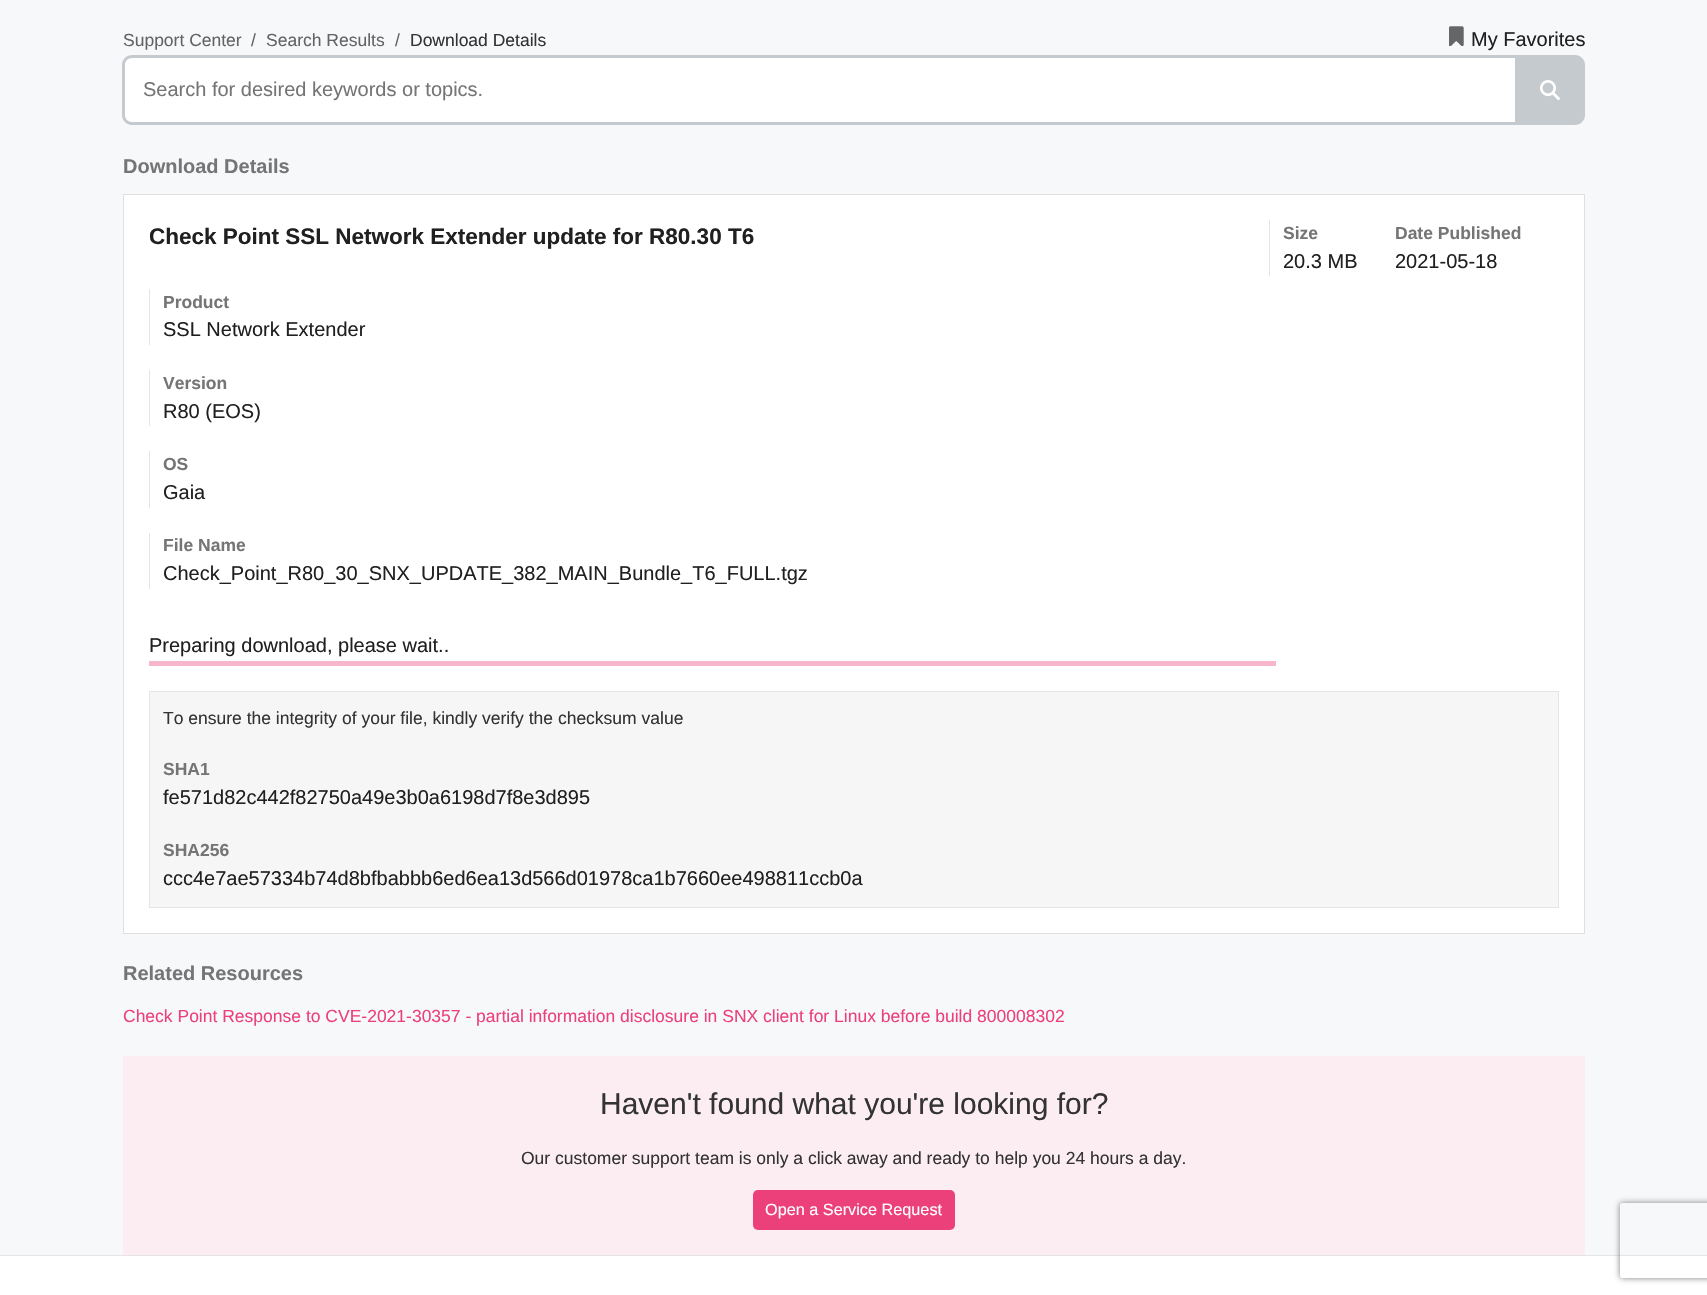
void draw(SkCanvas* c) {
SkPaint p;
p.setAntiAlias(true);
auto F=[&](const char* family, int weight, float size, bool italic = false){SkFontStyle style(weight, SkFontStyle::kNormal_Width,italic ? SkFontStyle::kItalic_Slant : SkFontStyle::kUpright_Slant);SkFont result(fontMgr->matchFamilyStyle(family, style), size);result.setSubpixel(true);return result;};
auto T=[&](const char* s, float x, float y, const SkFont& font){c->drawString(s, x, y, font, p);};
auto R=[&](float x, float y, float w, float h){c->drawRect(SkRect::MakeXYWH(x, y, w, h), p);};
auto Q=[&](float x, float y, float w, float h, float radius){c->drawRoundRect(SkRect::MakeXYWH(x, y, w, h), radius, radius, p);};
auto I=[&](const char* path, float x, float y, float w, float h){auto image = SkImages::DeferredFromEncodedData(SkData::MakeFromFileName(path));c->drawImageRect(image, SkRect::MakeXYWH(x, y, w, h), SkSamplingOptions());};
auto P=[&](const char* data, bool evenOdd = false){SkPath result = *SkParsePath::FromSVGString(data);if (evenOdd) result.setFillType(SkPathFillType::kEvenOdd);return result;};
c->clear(0xfff7f8fa);
auto f1 = F("Liberation Sans",400,17.5);
p.setColor(0xff636364);
T("Support Center",123,46,f1);
T("/",251,46,f1);
T("Search Results",266,46,f1);
T("/",395,46,f1);
p.setColor(0xff333333);
T("Download Details",410,46,f1);
I("1.png",1449,26,15,20);
auto f2 = F("Liberation Sans",400,20);
p.setColor(0xff202021);
T("My Favorites",1471,46,f2);
p.setColor(0xffffffff);
c->drawPath(P("M133 55h1382v70h-1382c-5.5 0-10-4.5-10-10v-50c0-5.5 4.5-10 10-10z"),p);
p.setColor(0xffc5cacf);
c->drawPath(P("M132 55h1383v70h-1383c-5 0-10-4-10-10v-50c0-6 5-10 10-10zm0 3h1383v64h-1383c-4 0-7-3-7-7v-50c0-4 3-7 7-7z",true),p);
p.setColor(0xff757575);
T("Search for desired keywords or topics.",143,96,f2);
p.setColor(0xffc5cacf);
c->drawPath(P("M1515 55h60c5.5 0 10 4.5 10 10v50c0 5.5-4.5 10-10 10h-60z"),p);
I("2.png",1540,80,20,20);
auto f3 = F("Liberation Sans",700,20);
p.setColor(0xff757575);
T("Download Details",123,173,f3);
p.setColor(0xffffffff);
c->drawRect(SkRect::MakeXYWH(123.5,194.5,1461,739),p);
p.setStroke(true);
p.setStrokeWidth(1);
p.setColor(0xffe0e0e0);
c->drawRect(SkRect::MakeXYWH(123.5,194.5,1461,739),p);
p.setStroke(false);
p.setColor(0xffe5e5e5);
R(1269,220,1,56);
auto f4 = F("Liberation Sans",700,22.5);
p.setColor(0xff202021);
T("Check Point SSL Network Extender update for R80.30 T6",149,244,f4);
auto f5 = F("Liberation Sans",700,17.5);
p.setColor(0xff757575);
T("Size",1283,239,f5);
p.setColor(0xff202021);
T("20.3 MB",1283,268,f2);
p.setColor(0xff757575);
T("Date Published",1395,239,f5);
p.setColor(0xff202021);
T("2021-05-18",1395,268,f2);
p.setColor(0xffe5e5e5);
R(149,289,1,56);
p.setColor(0xff757575);
T("Product",163,308,f5);
p.setColor(0xff202021);
T("SSL Network Extender",163,336,f2);
p.setColor(0xffe5e5e5);
R(149,370,1,56);
p.setColor(0xff757575);
T("Version",163,389,f5);
p.setColor(0xff202021);
T("R80 (EOS)",163,418,f2);
p.setColor(0xffe5e5e5);
R(149,451,1,57);
p.setColor(0xff757575);
T("OS",163,470,f5);
p.setColor(0xff202021);
T("Gaia",163,499,f2);
p.setColor(0xffe5e5e5);
R(149,533,1,56);
p.setColor(0xff757575);
T("File Name",163,551,f5);
p.setColor(0xff202021);
T("Check_Point_R80_30_SNX_UPDATE_382_MAIN_Bundle_T6_FULL.tgz",163,580,f2);
T("Preparing download, please wait..",149,652,f2);
p.setColor(0xfff7b6cc);
R(149,661,1127,5);
p.setColor(0xfff6f6f6);
c->drawRect(SkRect::MakeXYWH(149.5,691.5,1409,216),p);
p.setStroke(true);
p.setColor(0xffe5e5e5);
c->drawRect(SkRect::MakeXYWH(149.5,691.5,1409,216),p);
p.setStroke(false);
p.setColor(0xff333333);
T("To ensure the integrity of your file, kindly verify the checksum value",163,724,f1);
p.setColor(0xff757575);
T("SHA1",163,775,f5);
p.setColor(0xff202021);
T("fe571d82c442f82750a49e3b0a6198d7f8e3d895",163,804,f2);
p.setColor(0xff757575);
T("SHA256",163,856,f5);
p.setColor(0xff202021);
T("ccc4e7ae57334b74d8bfbabbb6ed6ea13d566d01978ca1b7660ee498811ccb0a",163,885,f2);
p.setColor(0xff757575);
T("Related Resources",123,980,f3);
p.setColor(0xffec407a);
T("Check Point Response to CVE-2021-30357 - partial information disclosure in SNX client for Linux before build 800008302",123,1022,f1);
p.setColor(0xfffcedf3);
R(123,1056,1462,199);
auto f6 = F("Liberation Sans",400,30);
p.setColor(0xff333333);
T("Haven't found what you're looking for?",600,1114,f6);
T("Our customer support team is only a click away and ready to help you 24 hours a day.",521,1164,f1);
p.setColor(0xffec407a);
Q(753,1190,202,40,5);
auto f7 = F("Liberation Sans",400,16.25);
p.setColor(0xffffffff);
T("Open a Service Request",765,1215,f7);
R(0,1256,1707,39);
p.setColor(0xffe5e5e5);
R(0,1255,1707,1);
c->save();
c->clipPath(P("M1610 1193h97v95h-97zm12.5 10h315c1.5 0 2.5 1 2.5 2.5v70c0 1.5-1 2.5-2.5 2.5h-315c-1.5 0-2.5-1-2.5-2.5v-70c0-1.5 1-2.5 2.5-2.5z",true),true);
p.setColor(0xff808080);
p.setMaskFilter(SkMaskFilter::MakeBlur(kNormal_SkBlurStyle, 3));
c->drawRoundRect(SkRect::MakeXYWH(1620,1203,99,75),2.5,2.5,p);
p.setMaskFilter(nullptr);
c->restore();
}
